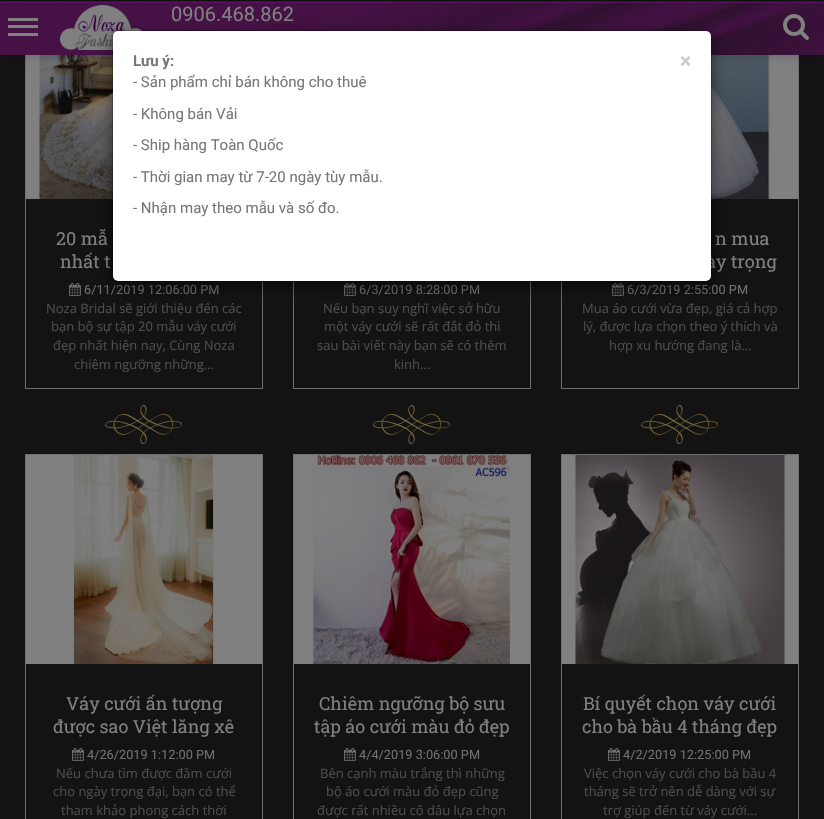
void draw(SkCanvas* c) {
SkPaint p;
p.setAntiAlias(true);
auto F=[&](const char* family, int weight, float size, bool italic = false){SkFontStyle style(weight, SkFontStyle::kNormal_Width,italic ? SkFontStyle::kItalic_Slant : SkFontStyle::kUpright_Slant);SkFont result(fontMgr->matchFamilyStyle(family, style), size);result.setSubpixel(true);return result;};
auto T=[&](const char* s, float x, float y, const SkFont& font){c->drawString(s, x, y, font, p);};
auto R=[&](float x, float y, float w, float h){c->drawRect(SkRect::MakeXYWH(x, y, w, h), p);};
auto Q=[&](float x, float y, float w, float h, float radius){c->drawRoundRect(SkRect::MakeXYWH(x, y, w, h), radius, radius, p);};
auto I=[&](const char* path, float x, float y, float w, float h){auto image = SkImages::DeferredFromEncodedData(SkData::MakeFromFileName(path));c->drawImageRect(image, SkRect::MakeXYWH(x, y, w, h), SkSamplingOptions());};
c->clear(0xff131313);
p.setStroke(true);
p.setStrokeWidth(1);
p.setColor(0xff6f6f6f);
c->drawRect(SkRect::MakeXYWH(25.5,-.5,237,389),p);
I("5.png",26,55,87,144);
c->drawRect(SkRect::MakeXYWH(293.5,-.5,237,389),p);
c->drawRect(SkRect::MakeXYWH(561.5,-.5,237,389),p);
I("7.png",711,55,87,144);
p.setStroke(false);
p.setColor(0x1a000000);
p.setMaskFilter(SkMaskFilter::MakeBlur(kNormal_SkBlurStyle, 2.5));
c->drawRect(SkRect::MakeXYWH(0,4,824,55),p);
p.setMaskFilter(nullptr);
I("1.png",0,0,824,55);
p.setColor(0xff808080);
R(8,25,30,3);
R(8,18,30,3);
R(8,33,30,3);
I("2.png",60,5,83,45);
auto f1 = F("Roboto",400,20);
T("0906.468.862",171,21,f1);
I("3.png",783,14,26,26);
I("4.png",105,405,77,39);
auto f2 = F("Roboto Slab",400,18);
T("20 mẫ",56,245,f2);
T("nhất t",60,268,f2);
I("6.png",69,283,12,13);
auto f3 = F("Roboto",400,12.75);
p.setColor(0xff707070);
T("6/11/2019 12:06:00 PM",84,294,f3);
auto f4 = F("Open Sans",400,13);
p.setColor(0xff4d4d4d);
T("Noza Bridal sẽ giới thiệu đến các",46,313,f4);
T("bạn bộ sự tập 20 mẫu váy cưới",51,331,f4);
T("đẹp nhất hiện nay, Cùng Noza",53,350,f4);
T("chiêm ngưỡng những...",74,369,f4);
I("4.png",373,405,77,39);
I("6.png",344,283,12,13);
p.setColor(0xff707070);
T("6/3/2019 8:28:00 PM",359,294,f3);
p.setColor(0xff4d4d4d);
T("Nếu bạn suy nghĩ việc sở hữu",323,313,f4);
T("một váy cưới sẽ rất đắt đỏ thì",324,331,f4);
T("sau bài viết này bạn sẽ có thêm",317,350,f4);
T("kinh...",394,369,f4);
I("4.png",641,405,77,39);
p.setColor(0xff808080);
T("n mua",715,245,f2);
T("ày trọng",706,268,f2);
I("6.png",612,283,12,13);
p.setColor(0xff707070);
T("6/3/2019 2:55:00 PM",627,294,f3);
p.setColor(0xff4d4d4d);
T("Mua áo cưới vừa đẹp, giá cả hợp",582,313,f4);
T("lý, được lựa chọn theo ý thích và",583,331,f4);
T("hợp xu hướng đang là...",609,350,f4);
p.setStroke(true);
p.setColor(0xff6f6f6f);
c->drawRect(SkRect::MakeXYWH(25.5,454.5,237,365),p);
I("8.png",26,455,236,209);
p.setStroke(false);
p.setColor(0xff808080);
T("Váy cưới ấn tượng",66,710,f2);
T("được sao Việt lăng xê",53,733,f2);
I("6.png",72,748,12,13);
p.setColor(0xff707070);
T("4/26/2019 1:12:00 PM",87,759,f3);
p.setColor(0xff4d4d4d);
T("Nếu chưa tìm được đầm cưới",56,778,f4);
T("cho ngày trọng đại, bạn có thể",53,796,f4);
T("tham khảo phong cách thời",61,815,f4);
p.setStroke(true);
p.setColor(0xff6f6f6f);
c->drawRect(SkRect::MakeXYWH(293.5,454.5,237,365),p);
I("9.png",294,455,236,209);
p.setStroke(false);
p.setColor(0xff808080);
T("Chiêm ngưỡng bộ sưu",319,710,f2);
T("tập áo cưới màu đỏ đẹp",314,733,f2);
I("6.png",344,748,12,13);
p.setColor(0xff707070);
T("4/4/2019 3:06:00 PM",359,759,f3);
p.setColor(0xff4d4d4d);
T("Bên cạnh màu trắng thì những",320,778,f4);
T("bộ áo cưới màu đỏ đẹp cũng",326,796,f4);
T("được rất nhiều cô dâu lựa chọn",317,815,f4);
p.setStroke(true);
p.setColor(0xff6f6f6f);
c->drawRect(SkRect::MakeXYWH(561.5,454.5,237,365),p);
I("10.png",562,455,236,209);
p.setStroke(false);
p.setColor(0xff808080);
T("Bí quyết chọn váy cưới",583,710,f2);
T("cho bà bầu 4 tháng đẹp",582,733,f2);
I("6.png",608,748,12,13);
p.setColor(0xff707070);
T("4/2/2019 12:25:00 PM",623,759,f3);
p.setColor(0xff4d4d4d);
T("Việc chọn váy cưới cho bà bầu 4",584,778,f4);
T("tháng sẽ trở nên dễ dàng với sự",584,796,f4);
T("trợ giúp đến từ váy cưới...",603,815,f4);
p.setColor(0x80000000);
p.setMaskFilter(SkMaskFilter::MakeBlur(kNormal_SkBlurStyle, 7.5));
c->drawRoundRect(SkRect::MakeXYWH(112,35,600,252),6,6,p);
p.setMaskFilter(nullptr);
p.setColor(0xffffffff);
Q(113,31,598,250,5);
p.setStroke(true);
p.setColor(0x33000000);
c->drawRoundRect(SkRect::MakeXYWH(112.5,30.5,599,251),5.5,5.5,p);
auto f5 = F("Roboto",700,15);
p.setStroke(false);
p.setColor(0xff777777);
T("Lưu ý:",133,66,f5);
auto f6 = F("Roboto",400,15);
T("- Sản phẩm chỉ bán không cho thuê",133,87,f6);
auto f7 = F("Roboto",700,21);
p.setColor(0xffcccccc);
T("×",680,68,f7);
p.setColor(0xff777777);
T("- Không bán Vải",133,119,f6);
T("- Ship hàng Toàn Quốc",133,150,f6);
T("- Thời gian may từ 7-20 ngày tùy mẫu.",133,182,f6);
T("- Nhận may theo mẫu và số đo.",133,213,f6);
}
